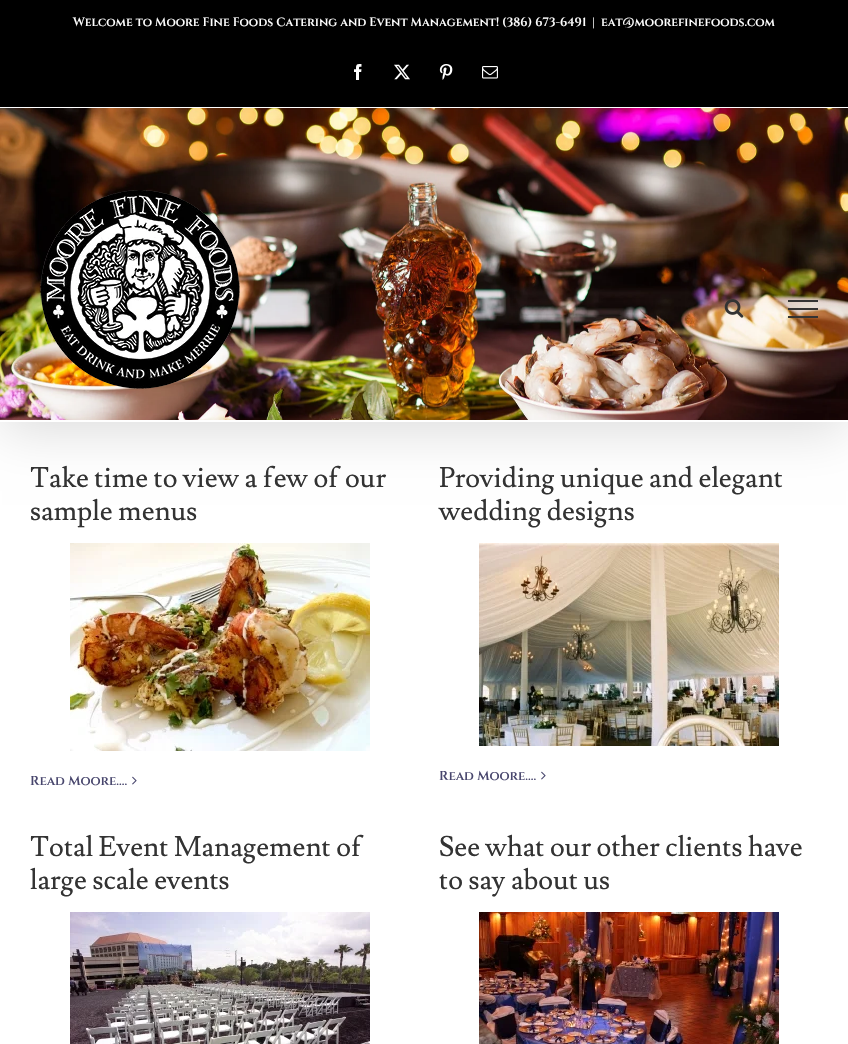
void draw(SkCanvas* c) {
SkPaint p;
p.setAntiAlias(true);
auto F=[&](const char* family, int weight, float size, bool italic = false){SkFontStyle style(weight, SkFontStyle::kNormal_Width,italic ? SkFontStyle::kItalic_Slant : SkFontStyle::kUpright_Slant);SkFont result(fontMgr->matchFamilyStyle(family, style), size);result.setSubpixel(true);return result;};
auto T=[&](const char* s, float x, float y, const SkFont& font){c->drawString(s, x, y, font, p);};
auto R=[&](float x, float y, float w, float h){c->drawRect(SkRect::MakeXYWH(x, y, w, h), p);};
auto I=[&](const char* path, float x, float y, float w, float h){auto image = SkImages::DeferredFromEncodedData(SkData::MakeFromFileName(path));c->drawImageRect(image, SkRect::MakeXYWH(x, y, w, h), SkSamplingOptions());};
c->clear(0xffffffff);
p.setColor(0x24000000);
p.setMaskFilter(SkMaskFilter::MakeBlur(kNormal_SkBlurStyle, 25));
c->drawRect(SkRect::MakeXYWH(2,12,844,418),p);
p.setMaskFilter(nullptr);
p.setColor(0xff000000);
R(0,0,848,107);
p.setColor(0xffffffff);
R(0,107,848,1);
auto f1 = F("Cinzel",600,12);
T("Welcome to Moore Fine Foods Catering and Event Management! (386) 673-6491",73,26,f1);
T("|",592,26,f1);
T("eat@moorefinefoods.com",601,26,f1);
I("1.png",354,64,8,16);
I("2.png",394,64,16,16);
I("3.png",439,64,14,16);
I("4.png",482,66,16,13);
I("5.png",0,108,848,312);
R(0,420,848,2);
I("6.png",40,190,200,199);
I("7.png",724,299,20,19);
p.setColor(0xff333333);
R(788,300,30,2);
R(788,308,30,2);
R(788,316,30,2);
auto f2 = F("Lusitana",400,28);
T("Take time to view a few of our",30,487,f2);
T("sample menus",30,520,f2);
I("8.png",70,543,300,208);
auto f3 = F("Cinzel",600,13);
p.setColor(0xff48466d);
T("Read Moore....",30,785,f3);
I("9.png",132,776,5,9);
p.setColor(0xff333333);
T("Providing unique and elegant",439,487,f2);
T("wedding designs",439,520,f2);
I("10.png",479,543,300,203);
p.setColor(0xff48466d);
T("Read Moore....",439,780,f3);
I("9.png",541,771,5,9);
p.setColor(0xff333333);
T("Total Event Management of",30,856,f2);
T("large scale events",30,889,f2);
I("11.png",70,912,300,132);
T("See what our other clients have",439,856,f2);
T("to say about us",439,889,f2);
I("12.png",479,912,300,132);
}
